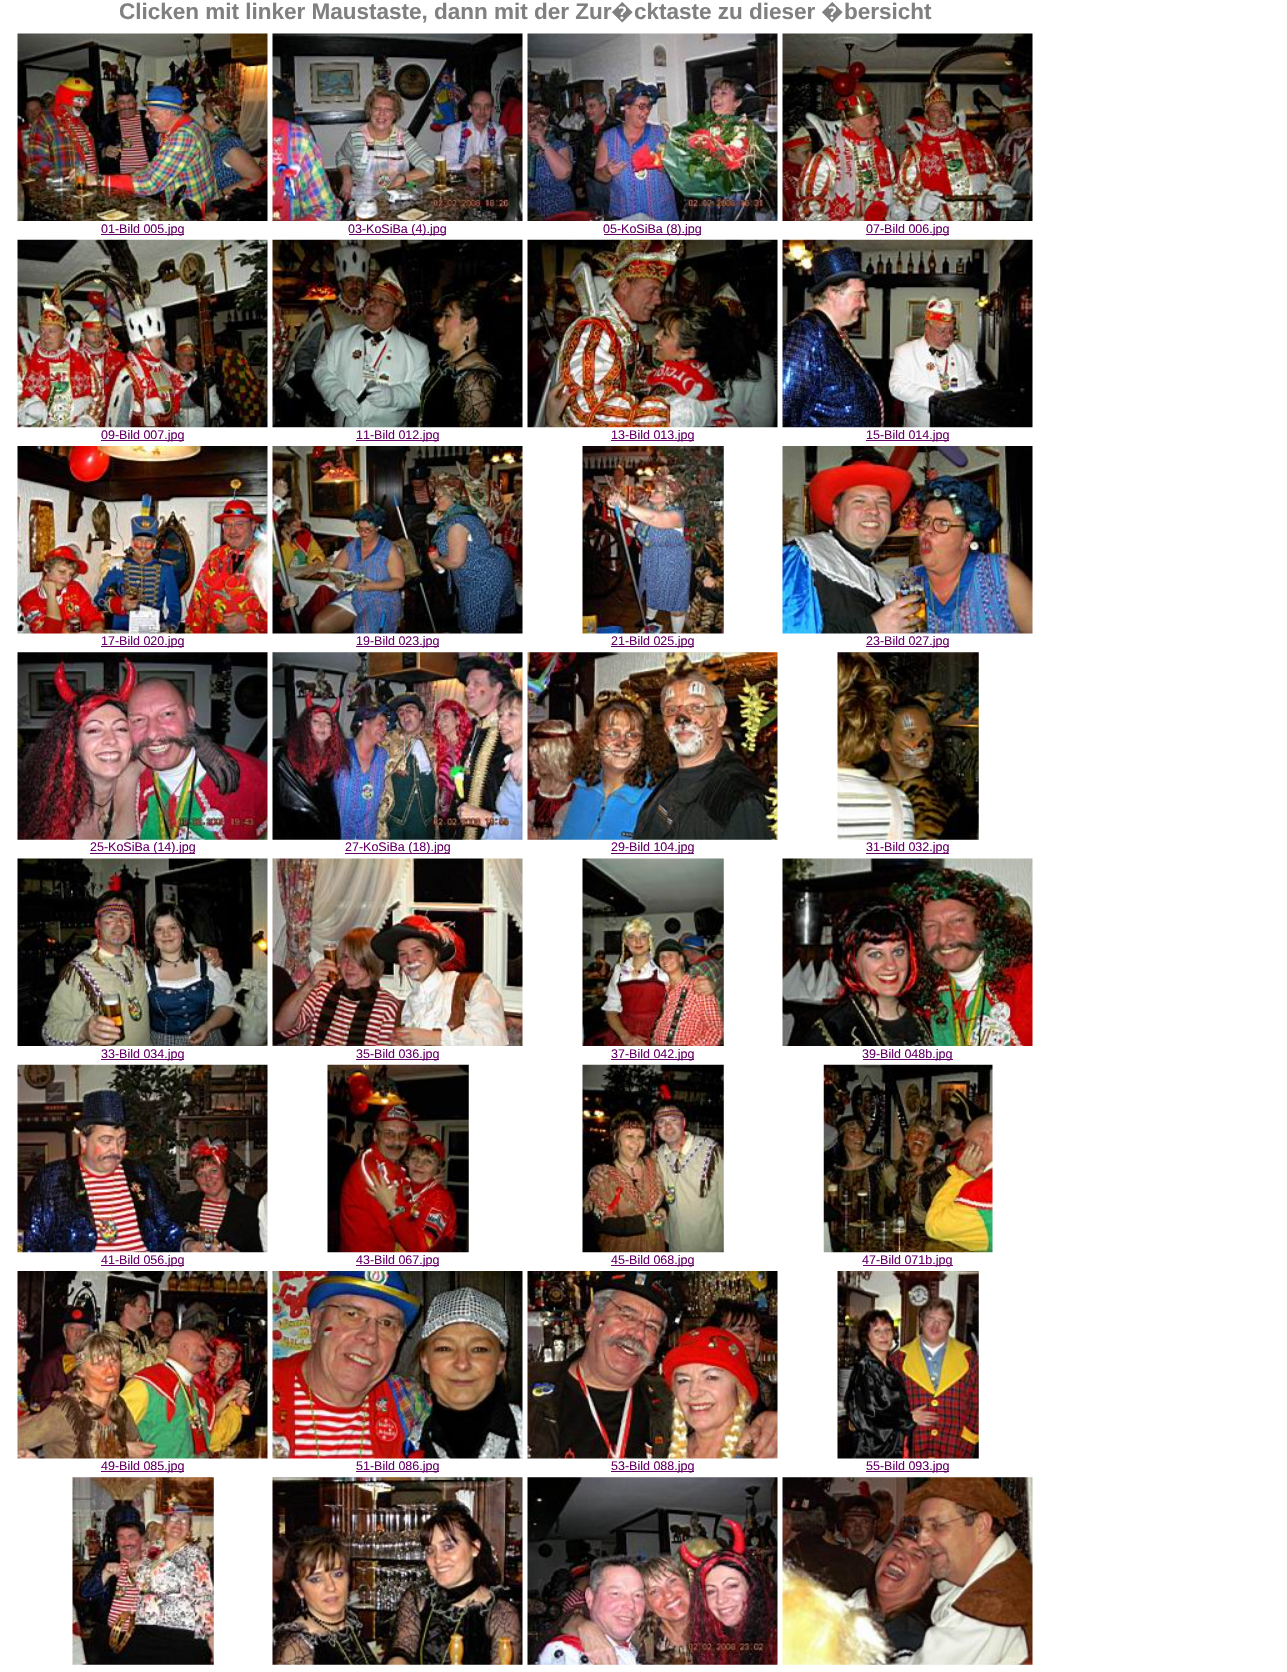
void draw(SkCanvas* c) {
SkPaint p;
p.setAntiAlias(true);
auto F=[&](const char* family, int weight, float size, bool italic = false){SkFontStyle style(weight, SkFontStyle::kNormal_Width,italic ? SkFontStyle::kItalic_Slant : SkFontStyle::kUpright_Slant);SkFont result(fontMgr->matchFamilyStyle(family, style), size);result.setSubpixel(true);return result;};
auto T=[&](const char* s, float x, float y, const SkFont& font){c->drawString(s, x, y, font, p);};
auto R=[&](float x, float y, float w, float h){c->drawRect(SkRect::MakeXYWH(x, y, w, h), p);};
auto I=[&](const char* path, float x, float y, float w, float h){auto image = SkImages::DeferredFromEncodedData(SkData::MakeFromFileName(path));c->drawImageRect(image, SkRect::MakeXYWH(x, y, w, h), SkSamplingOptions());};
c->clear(0xffffffff);
auto f1 = F("Liberation Sans",700,22.5);
p.setColor(0xff808080);
T("Clicken mit linker Maustaste, dann mit der Zur",119,19,f1);
auto f2 = F("Noto Sans",700,22.5);
T("�",611,19,f2);
T("cktaste zu dieser",634,19,f1);
T("�",821,19,f2);
T("bersicht",844,19,f1);
I("1.png",17,33,251,188);
p.setColor(0xff660066);
R(101,234,83,1);
auto f3 = F("Liberation Sans",400,12.5);
T("01-Bild 005.jpg",101,233,f3);
I("2.png",272,33,251,188);
R(349,234,97,1);
T("03-KoSiBa (4).jpg",348,233,f3);
I("3.png",527,33,251,188);
R(604,234,97,1);
T("05-KoSiBa (8).jpg",603,233,f3);
I("4.png",782,33,251,188);
R(866,234,83,1);
T("07-Bild 006.jpg",866,233,f3);
I("5.png",17,239,251,189);
R(101,440,83,1);
T("09-Bild 007.jpg",101,439,f3);
I("6.png",272,239,251,189);
R(356,440,83,1);
T("11-Bild 012.jpg",356,439,f3);
I("7.png",527,239,251,189);
R(611,440,83,1);
T("13-Bild 013.jpg",611,439,f3);
I("8.png",782,239,251,189);
R(866,440,83,1);
T("15-Bild 014.jpg",866,439,f3);
I("9.png",17,446,251,188);
R(101,646,83,1);
T("17-Bild 020.jpg",101,645,f3);
I("10.png",272,446,251,188);
R(356,646,83,1);
T("19-Bild 023.jpg",356,645,f3);
I("11.png",582,446,142,188);
R(611,646,83,1);
T("21-Bild 025.jpg",611,645,f3);
I("12.png",782,446,251,188);
R(866,646,83,1);
T("23-Bild 027.jpg",866,645,f3);
I("13.png",17,652,251,188);
R(90,853,105,1);
T("25-KoSiBa (14).jpg",90,851,f3);
I("14.png",272,652,251,188);
R(345,853,105,1);
T("27-KoSiBa (18).jpg",345,851,f3);
I("15.png",527,652,251,188);
R(611,853,83,1);
T("29-Bild 104.jpg",611,851,f3);
I("16.png",837,652,142,188);
R(866,853,83,1);
T("31-Bild 032.jpg",866,851,f3);
I("17.png",17,858,251,188);
R(101,1059,83,1);
T("33-Bild 034.jpg",101,1058,f3);
I("18.png",272,858,251,188);
R(356,1059,83,1);
T("35-Bild 036.jpg",356,1058,f3);
I("19.png",582,858,142,188);
R(611,1059,83,1);
T("37-Bild 042.jpg",611,1058,f3);
I("20.png",782,858,251,188);
R(863,1059,90,1);
T("39-Bild 048b.jpg",862,1058,f3);
I("21.png",17,1064,251,189);
R(101,1265,83,1);
T("41-Bild 056.jpg",101,1264,f3);
I("22.png",327,1064,142,189);
R(356,1265,83,1);
T("43-Bild 067.jpg",356,1264,f3);
I("23.png",582,1064,142,189);
R(611,1265,83,1);
T("45-Bild 068.jpg",611,1264,f3);
I("24.png",823,1064,170,189);
R(863,1265,90,1);
T("47-Bild 071b.jpg",862,1264,f3);
I("25.png",17,1271,251,188);
R(101,1471,83,1);
T("49-Bild 085.jpg",101,1470,f3);
I("26.png",272,1271,251,188);
R(356,1471,83,1);
T("51-Bild 086.jpg",356,1470,f3);
I("27.png",527,1271,251,188);
R(611,1471,83,1);
T("53-Bild 088.jpg",611,1470,f3);
I("28.png",837,1271,142,188);
R(866,1471,83,1);
T("55-Bild 093.jpg",866,1470,f3);
I("29.png",72,1477,142,188);
I("30.png",272,1477,251,188);
I("31.png",527,1477,251,188);
I("32.png",782,1477,251,188);
}
